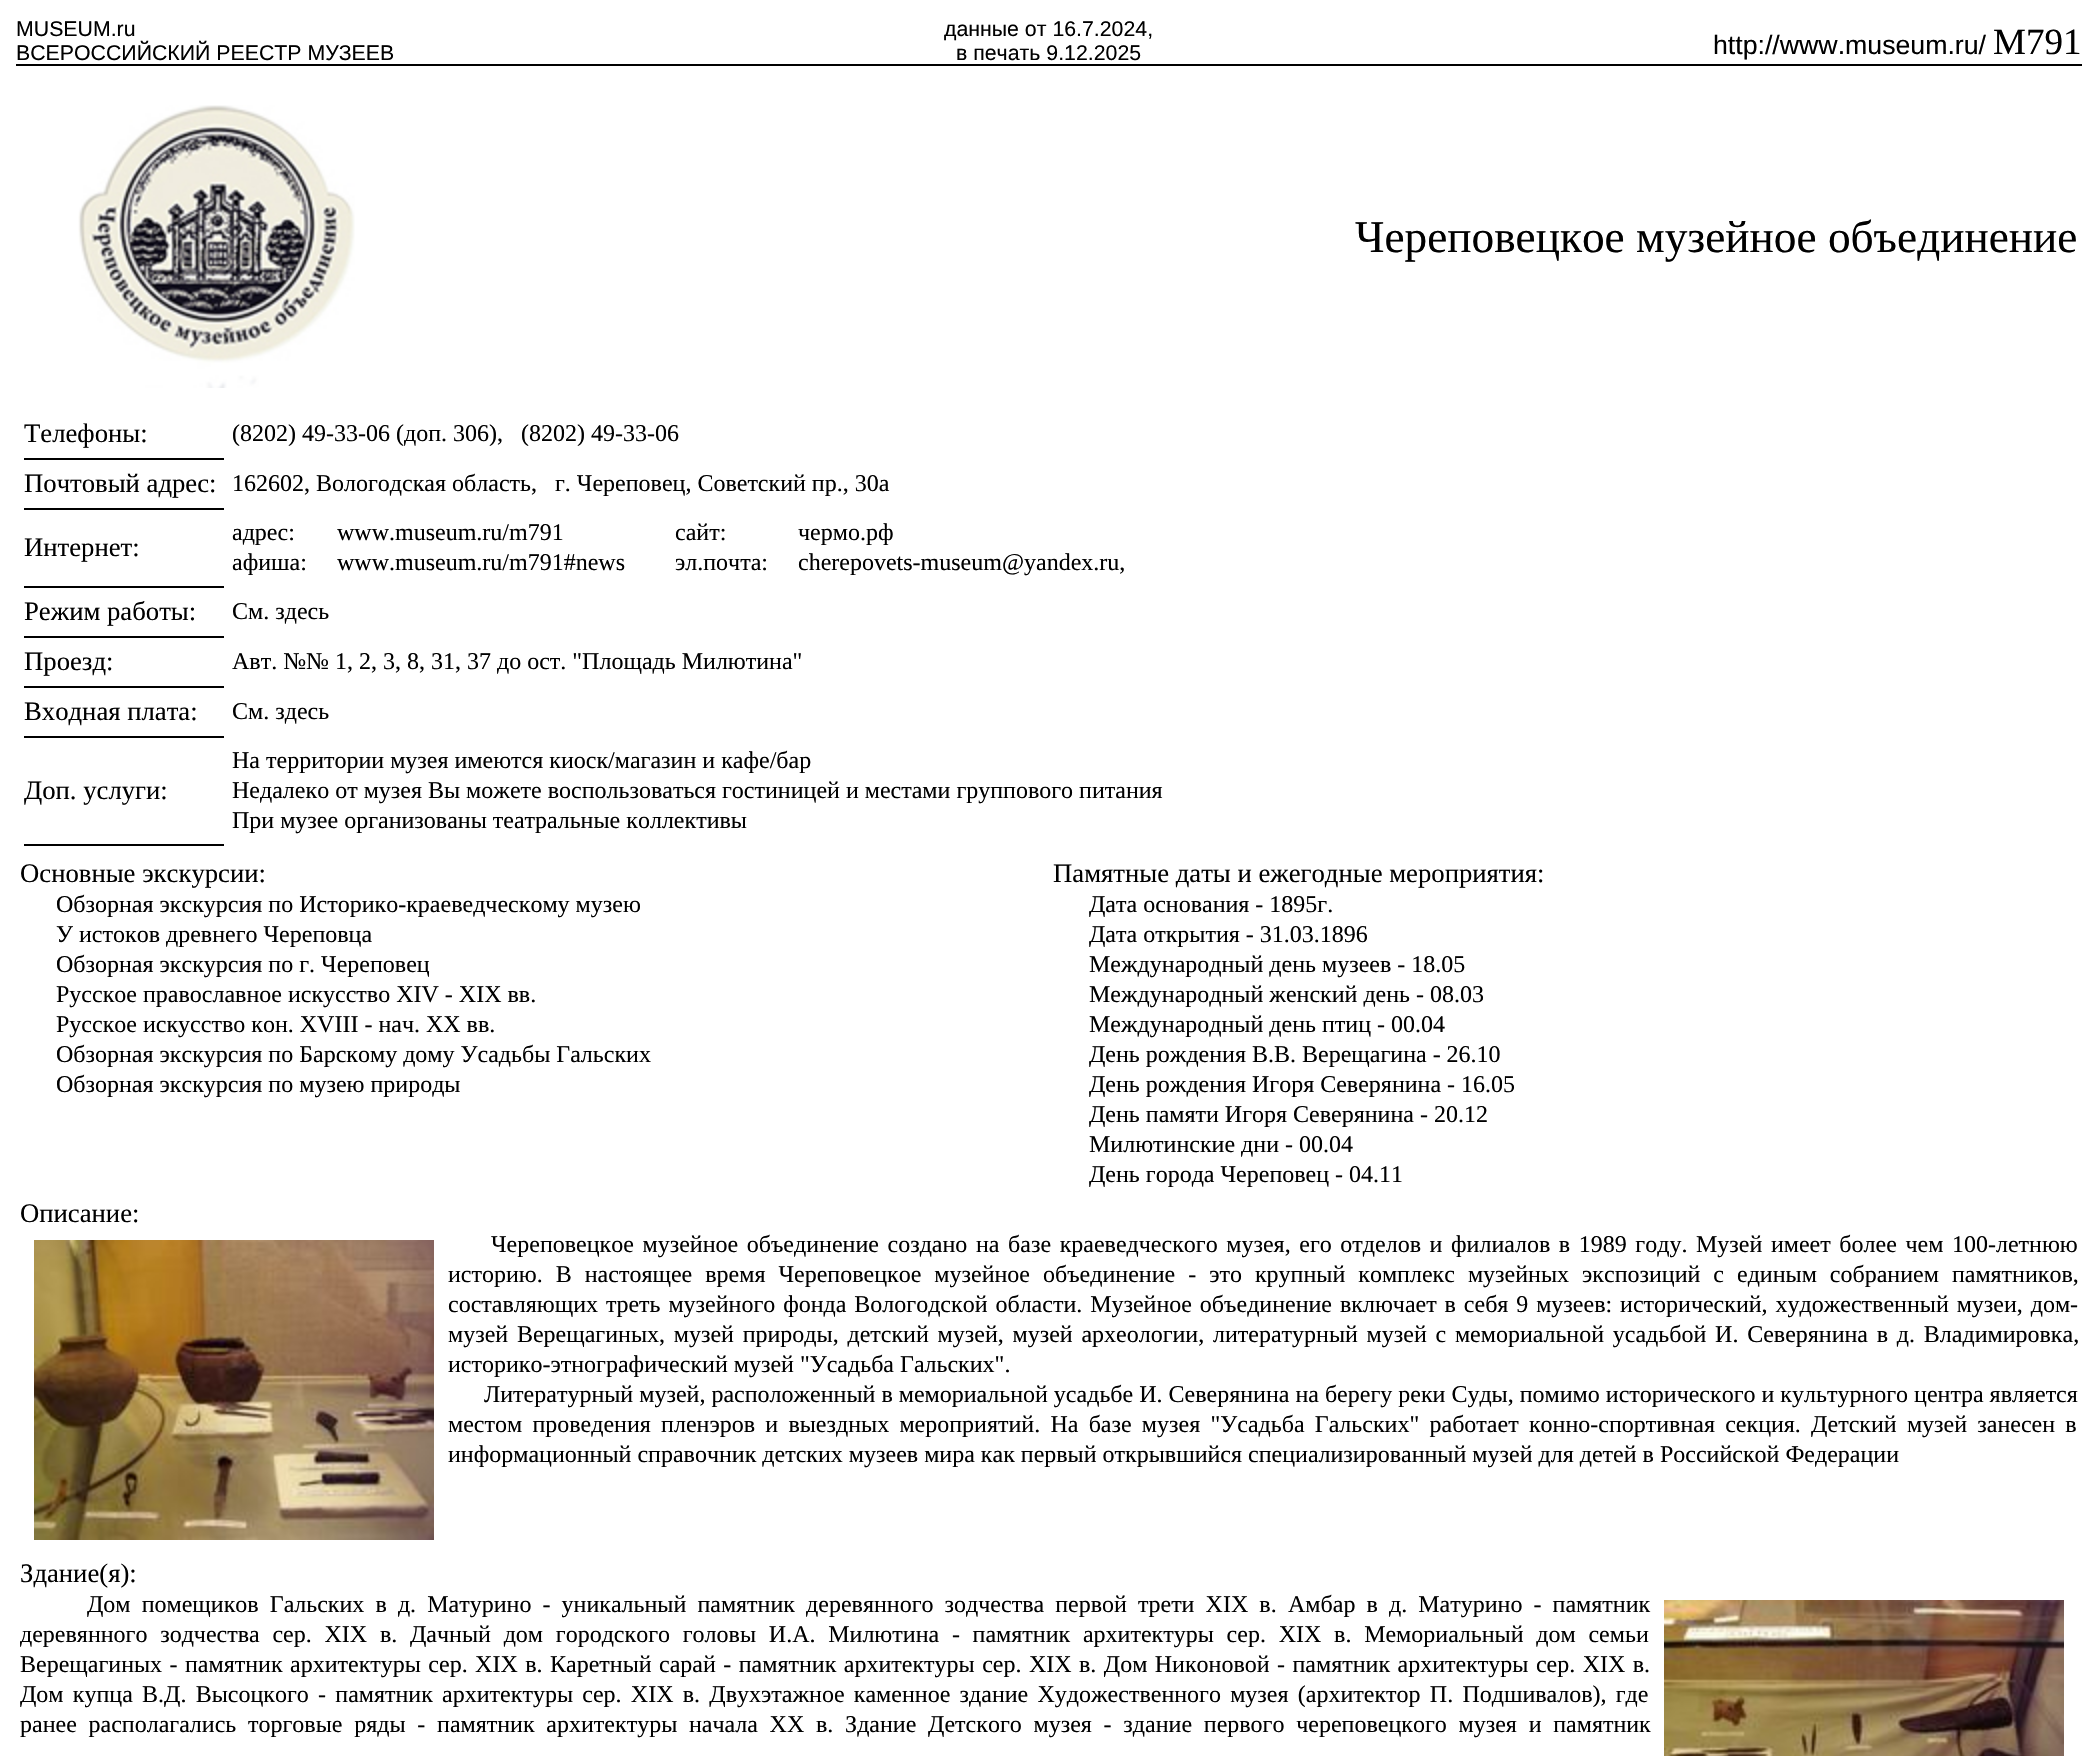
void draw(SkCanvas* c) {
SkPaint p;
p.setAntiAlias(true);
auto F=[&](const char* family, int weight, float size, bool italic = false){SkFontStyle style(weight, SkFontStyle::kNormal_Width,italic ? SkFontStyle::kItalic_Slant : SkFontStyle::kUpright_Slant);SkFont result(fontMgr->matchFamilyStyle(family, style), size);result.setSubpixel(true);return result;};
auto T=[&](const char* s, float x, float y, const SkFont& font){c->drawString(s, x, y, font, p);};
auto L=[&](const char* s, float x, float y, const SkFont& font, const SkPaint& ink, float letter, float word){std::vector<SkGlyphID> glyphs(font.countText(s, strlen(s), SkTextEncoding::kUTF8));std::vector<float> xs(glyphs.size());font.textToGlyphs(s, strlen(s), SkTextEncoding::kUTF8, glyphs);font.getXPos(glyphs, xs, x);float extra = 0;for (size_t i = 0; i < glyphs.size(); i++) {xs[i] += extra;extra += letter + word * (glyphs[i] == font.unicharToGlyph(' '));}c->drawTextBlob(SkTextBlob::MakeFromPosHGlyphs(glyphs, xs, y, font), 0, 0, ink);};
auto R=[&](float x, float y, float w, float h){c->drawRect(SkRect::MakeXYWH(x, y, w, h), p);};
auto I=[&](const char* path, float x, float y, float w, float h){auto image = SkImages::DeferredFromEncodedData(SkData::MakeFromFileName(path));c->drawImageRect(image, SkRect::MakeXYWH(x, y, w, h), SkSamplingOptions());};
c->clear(0xffffffff);
auto f1 = F("Liberation Sans",400,21.3);
p.setColor(0xff000000);
T("MUSEUM.ru",16,36,f1);
T("ВСЕРОССИЙСКИЙ РЕЕСТР МУЗЕЕВ",16,60,f1);
T("данные от 16.7.2024,",944,36,f1);
T("в печать 9.12.2025",956,60,f1);
auto f2 = F("Liberation Sans",400,26.7);
T("http://www.museum.ru/",1713,54,f2);
auto f3 = F("Liberation Serif",400,37);
T("М791",1993,54,f3);
R(16,64,2066,2);
I("1.png",78,105,277,283);
auto f4 = F("Liberation Serif",400,45.3);
T("Череповецкое музейное объединение",1355,252,f4);
auto f5 = F("Liberation Serif",400,26.7);
T("Телефоны:",24,442,f5);
auto f6 = F("Liberation Serif",400,24);
T("(8202) 49-33-06 (доп. 306),   (8202) 49-33-06",232,441,f6);
R(24,458,200,2);
T("Почтовый адрес:",24,492,f5);
T("162602, Вологодская область,   г. Череповец, Советский пр., 30а",232,491,f6);
R(24,508,200,2);
T("Интернет:",24,556,f5);
T("адрес:",232,540,f6);
T("www.museum.ru/m791",337,540,f6);
T("сайт:",675,540,f6);
T("чермо.рф",798,540,f6);
T("афиша:",232,570,f6);
T("www.museum.ru/m791#news",337,570,f6);
T("эл.почта:",675,570,f6);
T("cherepovets-museum@yandex.ru,",798,570,f6);
R(24,586,200,2);
T("Режим работы:",24,620,f5);
T("См. здесь",232,619,f6);
R(24,636,200,2);
T("Проезд:",24,670,f5);
T("Авт. №№ 1, 2, 3, 8, 31, 37 до ост. \"Площадь Милютина\"",232,669,f6);
R(24,686,200,2);
T("Входная плата:",24,720,f5);
T("См. здесь",232,719,f6);
R(24,736,200,2);
T("Доп. услуги:",24,799,f5);
T("На территории музея имеются киоск/магазин и кафе/бар",232,768,f6);
T("Недалеко от музея Вы можете воспользоваться гостиницей и местами группового питания",232,798,f6);
T("При музее организованы театральные коллективы",232,828,f6);
R(24,844,200,2);
T("Основные экскурсии:",20,882,f5);
T("Обзорная экскурсия по Историко-краеведческому музею",56,912,f6);
T("У истоков древнего Череповца",56,942,f6);
T("Обзорная экскурсия по г. Череповец",56,972,f6);
T("Русское православное искусство XIV - XIX вв.",56,1002,f6);
T("Русское искусство кон. XVIII - нач. XX вв.",56,1032,f6);
T("Обзорная экскурсия по Барскому дому Усадьбы Гальских",56,1062,f6);
T("Обзорная экскурсия по музею природы",56,1092,f6);
T("Памятные даты и ежегодные мероприятия:",1053,882,f5);
T("Дата основания - 1895г.",1089,912,f6);
T("Дата открытия - 31.03.1896",1089,942,f6);
T("Международный день музеев - 18.05",1089,972,f6);
T("Международный женский день - 08.03",1089,1002,f6);
T("Международный день птиц - 00.04",1089,1032,f6);
T("День рождения В.В. Верещагина - 26.10",1089,1062,f6);
T("День рождения Игоря Северянина - 16.05",1089,1092,f6);
T("День памяти Игоря Северянина - 20.12",1089,1122,f6);
T("Милютинские дни - 00.04",1089,1152,f6);
T("День города Череповец - 04.11",1089,1182,f6);
T("Описание:",20,1222,f5);
I("2.png",34,1240,400,300);
L("Череповецкое музейное объединение создано на базе краеведческого музея, его отделов и филиалов в 1989 году. Музей имеет более чем 100-летнюю",491,1252,f6,p,0,2.6);
L("историю. В настоящее время Череповецкое музейное объединение - это крупный комплекс музейных экспозиций с единым собранием памятников,",448,1282,f6,p,0,7);
L("составляющих треть музейного фонда Вологодской области. Музейное объединение включает в себя 9 музеев: исторический, художественный музеи, дом-",448,1312,f6,p,0,1.9);
L("музей Верещагиных, музей природы, детский музей, музей археологии, литературный музей с мемориальной усадьбой И. Северянина в д. Владимировка,",448,1342,f6,p,0,2.75);
T("историко-этнографический музей \"Усадьба Гальских\".",448,1372,f6);
T("Литературный музей, расположенный в мемориальной усадьбе И. Северянина на берегу реки Суды, помимо исторического и культурного центра является",484,1402,f6);
L("местом проведения пленэров и выездных мероприятий. На базе музея \"Усадьба Гальских\" работает конно-спортивная секция. Детский музей занесен в",448,1432,f6,p,0,4.25);
T("информационный справочник детских музеев мира как первый открывшийся специализированный музей для детей в Российской Федерации",448,1462,f6);
T("Здание(я):",20,1582,f5);
L("Дом помещиков Гальских в д. Матурино - уникальный памятник деревянного зодчества первой трети XIX в.",87,1612,f6,p,0,5.1);
L("Амбар в д. Матурино - памятник",1288,1612,f6,p,0,5.1);
I("3.png",1664,1600,400,156);
L("деревянного зодчества сер. XIX в.",20,1642,f6,p,0,6.75);
L("Дачный дом городского головы И.А. Милютина - памятник архитектуры сер. XIX в. Мемориальный дом семьи",410,1642,f6,p,0,6.75);
L("Верещагиных - памятник архитектуры сер. XIX в. Каретный сарай - памятник архитектуры сер. XIX в. Дом Никоновой - памятник архитектуры сер. XIX в.",20,1672,f6,p,0,1.45);
L("Дом купца В.Д. Высоцкого - памятник архитектуры сер. XIX в. Двухэтажное каменное здание Художественного музея (архитектор П. Подшивалов), где",20,1702,f6,p,0,3.25);
L("ранее располагались торговые ряды - памятник архитектуры начала XX в. Здание Детского музея - здание первого череповецкого музея и памятник",20,1732,f6,p,0,5.75);
}
